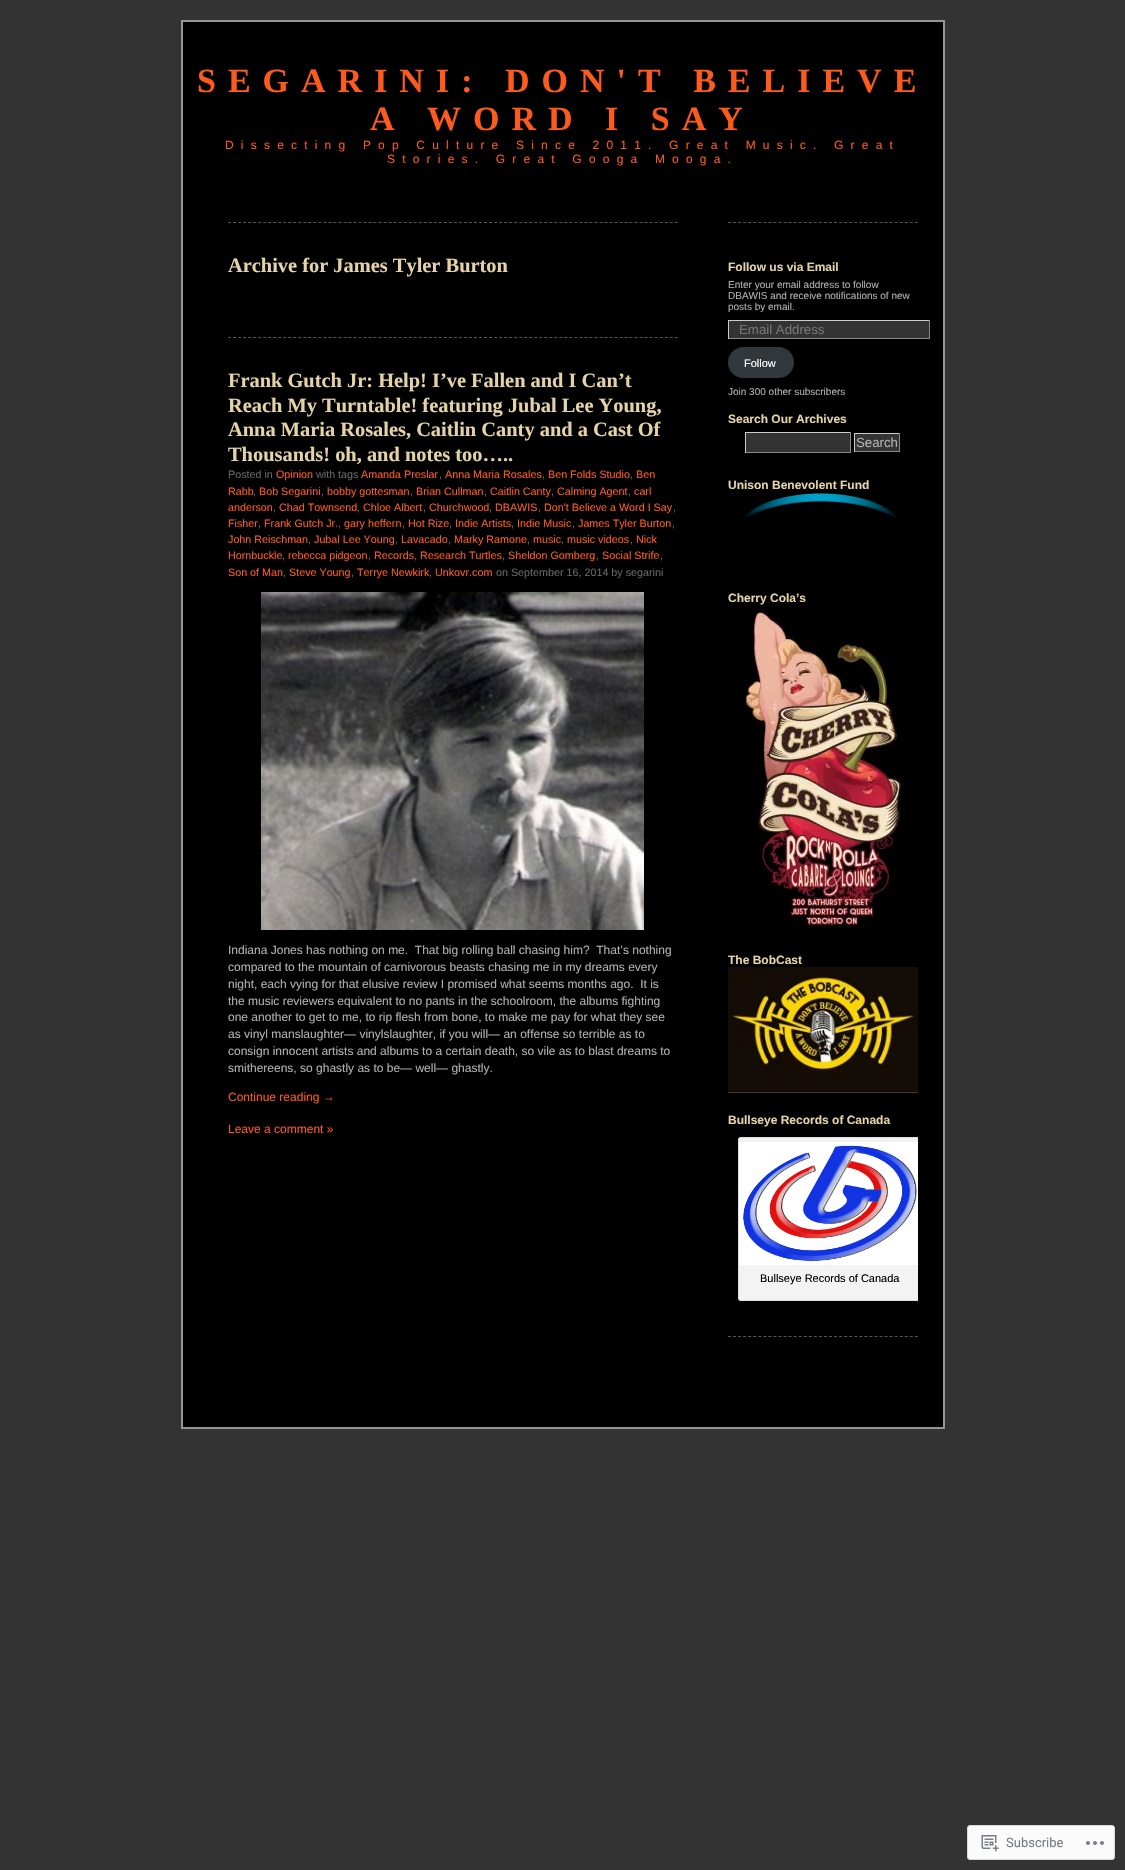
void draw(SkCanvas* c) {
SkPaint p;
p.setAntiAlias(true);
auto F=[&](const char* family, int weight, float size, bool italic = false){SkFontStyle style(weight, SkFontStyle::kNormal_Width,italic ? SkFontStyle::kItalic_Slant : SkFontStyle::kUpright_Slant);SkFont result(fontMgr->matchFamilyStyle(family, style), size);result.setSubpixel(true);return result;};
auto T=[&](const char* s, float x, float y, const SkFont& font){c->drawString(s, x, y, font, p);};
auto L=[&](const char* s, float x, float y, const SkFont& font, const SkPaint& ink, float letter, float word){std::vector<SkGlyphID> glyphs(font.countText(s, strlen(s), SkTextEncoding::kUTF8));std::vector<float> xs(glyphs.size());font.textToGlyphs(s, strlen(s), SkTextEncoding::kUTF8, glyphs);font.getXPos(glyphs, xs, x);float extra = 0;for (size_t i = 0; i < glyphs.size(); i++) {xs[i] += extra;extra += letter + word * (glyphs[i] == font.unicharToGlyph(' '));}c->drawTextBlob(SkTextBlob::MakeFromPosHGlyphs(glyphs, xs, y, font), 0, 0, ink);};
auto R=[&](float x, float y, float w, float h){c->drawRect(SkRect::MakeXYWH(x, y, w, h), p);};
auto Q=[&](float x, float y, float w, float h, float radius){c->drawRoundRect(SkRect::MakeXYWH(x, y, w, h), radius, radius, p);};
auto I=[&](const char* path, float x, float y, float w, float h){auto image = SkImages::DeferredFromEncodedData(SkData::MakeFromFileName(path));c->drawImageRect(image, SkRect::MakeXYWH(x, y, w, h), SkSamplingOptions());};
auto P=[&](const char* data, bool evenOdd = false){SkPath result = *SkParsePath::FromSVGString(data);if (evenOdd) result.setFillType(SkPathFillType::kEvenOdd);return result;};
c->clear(0xff333333);
p.setColor(0xff000000);
c->drawRect(SkRect::MakeXYWH(182,21,762,1407),p);
p.setStroke(true);
p.setStrokeWidth(2);
p.setColor(0xff959596);
c->drawRect(SkRect::MakeXYWH(182,21,762,1407),p);
auto f1 = F("Liberation Serif",700,34);
p.setStroke(false);
p.setColor(0xfffd5a1e);
L("SEGARINI: DON'T BELIEVE",197,92,f1,p,12,0);
L("A WORD I SAY",370,130,f1,p,12,0);
auto f2 = F("Liberation Sans",400,12);
L("Dissecting Pop Culture Since 2011. Great Music. Great",225,149,f2,p,7.2,0);
L("Stories. Great Googa Mooga.",387,163,f2,p,7.2,0);
p.setStroke(true);
p.setStrokeWidth(1);
p.setColor(0xff555555);
p.setPathEffect(SkDashPathEffect::Make({{3,2.02f}}, 0));
c->drawPath(P("M228 222.5h450"),p);
p.setPathEffect(nullptr);
auto f3 = F("Liberation Serif",700,20.4);
p.setStroke(false);
p.setColor(0xffe4d3a6);
T("Archive for James Tyler Burton",228,272,f3);
p.setStroke(true);
p.setColor(0xff555555);
p.setPathEffect(SkDashPathEffect::Make({{3,2.02f}}, 0));
c->drawPath(P("M228 337.5h450"),p);
p.setPathEffect(nullptr);
p.setStroke(false);
p.setColor(0xffe4d3a6);
T("Frank Gutch Jr: Help! I’ve Fallen and I Can’t",228,387,f3);
T("Reach My Turntable! featuring Jubal Lee Young,",228,412,f3);
T("Anna Maria Rosales, Caitlin Canty and a Cast Of",228,436,f3);
T("Thousands! oh, and notes too…..",228,461,f3);
auto f4 = F("Liberation Sans",400,10.75);
p.setColor(0xff666666);
T("Posted in",228,478,f4);
p.setColor(0xfffd5a1e);
T("Opinion",276,478,f4);
p.setColor(0xff666666);
T("with tags",316,478,f4);
p.setColor(0xfffd5a1e);
T("Amanda Preslar",361,478,f4);
p.setColor(0xff666666);
T(",",439,478,f4);
p.setColor(0xfffd5a1e);
T("Anna Maria Rosales",445,478,f4);
p.setColor(0xff666666);
T(",",542,478,f4);
p.setColor(0xfffd5a1e);
T("Ben Folds Studio",548,478,f4);
p.setColor(0xff666666);
T(",",630,478,f4);
p.setColor(0xfffd5a1e);
T("Ben",636,478,f4);
T("Rabb",228,495,f4);
p.setColor(0xff666666);
T(",",253,495,f4);
p.setColor(0xfffd5a1e);
T("Bob Segarini",259,495,f4);
p.setColor(0xff666666);
T(",",321,495,f4);
p.setColor(0xfffd5a1e);
T("bobby gottesman",327,495,f4);
p.setColor(0xff666666);
T(",",410,495,f4);
p.setColor(0xfffd5a1e);
T("Brian Cullman",416,495,f4);
p.setColor(0xff666666);
T(",",484,495,f4);
p.setColor(0xfffd5a1e);
T("Caitlin Canty",490,495,f4);
p.setColor(0xff666666);
T(",",551,495,f4);
p.setColor(0xfffd5a1e);
T("Calming Agent",557,495,f4);
p.setColor(0xff666666);
T(",",628,495,f4);
p.setColor(0xfffd5a1e);
T("carl",634,495,f4);
T("anderson",228,511,f4);
p.setColor(0xff666666);
T(",",273,511,f4);
p.setColor(0xfffd5a1e);
T("Chad Townsend",279,511,f4);
p.setColor(0xff666666);
T(",",357,511,f4);
p.setColor(0xfffd5a1e);
T("Chloe Albert",363,511,f4);
p.setColor(0xff666666);
T(",",423,511,f4);
p.setColor(0xfffd5a1e);
T("Churchwood",429,511,f4);
p.setColor(0xff666666);
T(",",489,511,f4);
p.setColor(0xfffd5a1e);
T("DBAWIS",495,511,f4);
p.setColor(0xff666666);
T(",",538,511,f4);
p.setColor(0xfffd5a1e);
T("Don't Believe a Word I Say",544,511,f4);
p.setColor(0xff666666);
T(",",673,511,f4);
p.setColor(0xfffd5a1e);
T("Fisher",228,527,f4);
p.setColor(0xff666666);
T(",",258,527,f4);
p.setColor(0xfffd5a1e);
T("Frank Gutch Jr.",264,527,f4);
p.setColor(0xff666666);
T(",",338,527,f4);
p.setColor(0xfffd5a1e);
T("gary heffern",344,527,f4);
p.setColor(0xff666666);
T(",",402,527,f4);
p.setColor(0xfffd5a1e);
T("Hot Rize",408,527,f4);
p.setColor(0xff666666);
T(",",449,527,f4);
p.setColor(0xfffd5a1e);
T("Indie Artists",455,527,f4);
p.setColor(0xff666666);
T(",",511,527,f4);
p.setColor(0xfffd5a1e);
T("Indie Music",517,527,f4);
p.setColor(0xff666666);
T(",",572,527,f4);
p.setColor(0xfffd5a1e);
T("James Tyler Burton",578,527,f4);
p.setColor(0xff666666);
T(",",672,527,f4);
p.setColor(0xfffd5a1e);
T("John Reischman",228,543,f4);
p.setColor(0xff666666);
T(",",308,543,f4);
p.setColor(0xfffd5a1e);
T("Jubal Lee Young",314,543,f4);
p.setColor(0xff666666);
T(",",395,543,f4);
p.setColor(0xfffd5a1e);
T("Lavacado",401,543,f4);
p.setColor(0xff666666);
T(",",448,543,f4);
p.setColor(0xfffd5a1e);
T("Marky Ramone",454,543,f4);
p.setColor(0xff666666);
T(",",527,543,f4);
p.setColor(0xfffd5a1e);
T("music",533,543,f4);
p.setColor(0xff666666);
T(",",561,543,f4);
p.setColor(0xfffd5a1e);
T("music videos",567,543,f4);
p.setColor(0xff666666);
T(",",630,543,f4);
p.setColor(0xfffd5a1e);
T("Nick",636,543,f4);
T("Hornbuckle",228,559,f4);
p.setColor(0xff666666);
T(",",282,559,f4);
p.setColor(0xfffd5a1e);
T("rebecca pidgeon",288,559,f4);
p.setColor(0xff666666);
T(",",368,559,f4);
p.setColor(0xfffd5a1e);
T("Records",374,559,f4);
p.setColor(0xff666666);
T(",",414,559,f4);
p.setColor(0xfffd5a1e);
T("Research Turtles",420,559,f4);
p.setColor(0xff666666);
T(",",502,559,f4);
p.setColor(0xfffd5a1e);
T("Sheldon Gomberg",508,559,f4);
p.setColor(0xff666666);
T(",",596,559,f4);
p.setColor(0xfffd5a1e);
T("Social Strife",602,559,f4);
p.setColor(0xff666666);
T(",",660,559,f4);
p.setColor(0xfffd5a1e);
T("Son of Man",228,576,f4);
p.setColor(0xff666666);
T(",",283,576,f4);
p.setColor(0xfffd5a1e);
T("Steve Young",289,576,f4);
p.setColor(0xff666666);
T(",",351,576,f4);
p.setColor(0xfffd5a1e);
T("Terrye Newkirk",357,576,f4);
p.setColor(0xff666666);
T(",",429,576,f4);
p.setColor(0xfffd5a1e);
T("Unkovr.com",435,576,f4);
p.setColor(0xff666666);
T("on September 16, 2014 by segarini",496,576,f4);
I("1.png",261,592,383,338);
p.setColor(0xffb0b0b0);
T("Indiana Jones has nothing on me.  That big rolling ball chasing him?  That’s nothing",228,954,f2);
T("compared to the mountain of carnivorous beasts chasing me in my dreams every",228,971,f2);
T("night, each vying for that elusive review I promised what seems months ago.  It is",228,988,f2);
T("the music reviewers equivalent to no pants in the schoolroom, the albums fighting",228,1005,f2);
T("one another to get to me, to rip flesh from bone, to make me pay for what they see",228,1021,f2);
T("as vinyl manslaughter— vinylslaughter, if you will— an offense so terrible as to",228,1038,f2);
T("consign innocent artists and albums to a certain death, so vile as to blast dreams to",228,1055,f2);
T("smithereens, so ghastly as to be— well— ghastly.",228,1072,f2);
p.setColor(0xfffd5a1e);
T("Continue reading →",228,1101,f2);
T("Leave a comment »",228,1133,f2);
p.setStroke(true);
p.setColor(0xff555555);
p.setPathEffect(SkDashPathEffect::Make({{3,2.05f}}, 0));
c->drawPath(P("M728 222.5h190"),p);
p.setPathEffect(nullptr);
p.setPathEffect(SkDashPathEffect::Make({{3,2.05f}}, 0));
c->drawPath(P("M728 1336.5h190"),p);
p.setPathEffect(nullptr);
auto f5 = F("Liberation Sans",700,12);
p.setStroke(false);
p.setColor(0xffe4d3a6);
T("Follow us via Email",728,271,f5);
auto f6 = F("Liberation Sans",400,10);
p.setColor(0xffb0b0b0);
T("Enter your email address to follow",728,288,f6);
T("DBAWIS and receive notifications of new",728,299,f6);
T("posts by email.",728,310,f6);
p.setColor(0xff333333);
R(729,321,200,17);
p.setColor(0xffcccccc);
R(728,320,202,1);
p.setColor(0xff888888);
R(929,320,1,19);
R(728,338,202,1);
p.setColor(0xffcccccc);
R(728,320,1,19);
auto f7 = F("Liberation Sans",400,13.25);
p.setColor(0xff757575);
T("Email Address",739,334,f7);
p.setColor(0xff32373c);
Q(728,347,66,31,15.5);
auto f8 = F("Liberation Sans",400,11);
p.setColor(0xffffffff);
T("Follow",744,367,f8);
p.setColor(0xffb0b0b0);
T("Join 300 other subscribers",728,395,f6);
p.setColor(0xffe4d3a6);
T("Search Our Archives",728,423,f5);
p.setColor(0xff333333);
R(746,433,104,19);
p.setColor(0xffcccccc);
R(745,432,106,1);
p.setColor(0xff888888);
R(850,432,1,21);
R(745,452,106,1);
p.setColor(0xffcccccc);
R(745,432,1,21);
p.setColor(0xff333333);
R(855,434,44,17);
p.setColor(0xffcccccc);
R(854,433,46,1);
p.setColor(0xff888888);
R(899,433,1,19);
R(854,451,46,1);
p.setColor(0xffcccccc);
R(854,433,1,19);
p.setColor(0xffb0b0b0);
T("Search",856,447,f7);
p.setColor(0xffe4d3a6);
T("Unison Benevolent Fund",728,489,f5);
I("2.png",744,493,153,25);
T("Cherry Cola’s",728,602,f5);
I("3.png",741,612,160,316);
T("The BobCast",728,964,f5);
I("4.png",728,967,190,126);
T("Bullseye Records of Canada",728,1124,f5);
p.setColor(0xfff3f3f3);
c->drawPath(P("M741 1137h177v164h-177c-1.5 0-3-1.5-3-3v-158c0-1.5 1.5-3 3-3z"),p);
c->save();
c->clipRect(SkRect::MakeXYWH(728,1108,190,203));
p.setStroke(true);
p.setColor(0xffdddddd);
c->drawRoundRect(SkRect::MakeXYWH(738.5,1137.5,183,163),2.5,2.5,p);
c->restore();
I("5.png",739,1142,179,123);
p.setStroke(false);
p.setColor(0xff000000);
T("Bullseye Records of Canada",760,1282,f8);
p.setColor(0xfffbfbfb);
c->drawRoundRect(SkRect::MakeXYWH(967.5,1825.5,147,34),2.5,2.5,p);
p.setStroke(true);
p.setColor(0xffd9d9db);
c->drawRoundRect(SkRect::MakeXYWH(967.5,1825.5,147,34),2.5,2.5,p);
I("6.png",981,1835,18,17);
auto f9 = F("Roboto",400,13);
p.setStroke(false);
p.setColor(0xff777b80);
T("Subscribe",1006,1847,f9);
I("7.png",1086,1841,18,4);
}
